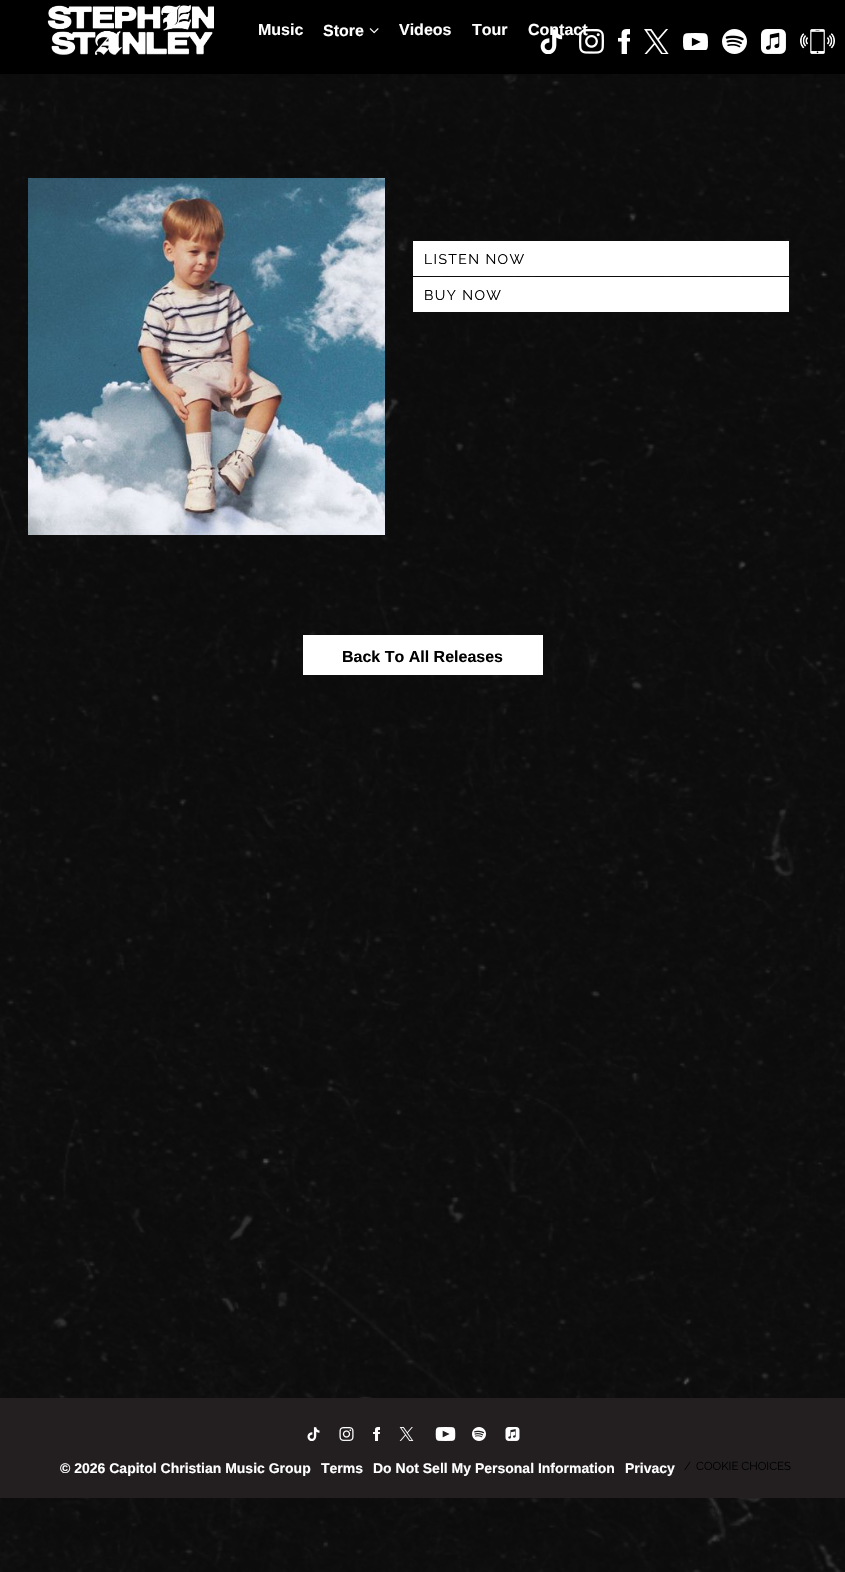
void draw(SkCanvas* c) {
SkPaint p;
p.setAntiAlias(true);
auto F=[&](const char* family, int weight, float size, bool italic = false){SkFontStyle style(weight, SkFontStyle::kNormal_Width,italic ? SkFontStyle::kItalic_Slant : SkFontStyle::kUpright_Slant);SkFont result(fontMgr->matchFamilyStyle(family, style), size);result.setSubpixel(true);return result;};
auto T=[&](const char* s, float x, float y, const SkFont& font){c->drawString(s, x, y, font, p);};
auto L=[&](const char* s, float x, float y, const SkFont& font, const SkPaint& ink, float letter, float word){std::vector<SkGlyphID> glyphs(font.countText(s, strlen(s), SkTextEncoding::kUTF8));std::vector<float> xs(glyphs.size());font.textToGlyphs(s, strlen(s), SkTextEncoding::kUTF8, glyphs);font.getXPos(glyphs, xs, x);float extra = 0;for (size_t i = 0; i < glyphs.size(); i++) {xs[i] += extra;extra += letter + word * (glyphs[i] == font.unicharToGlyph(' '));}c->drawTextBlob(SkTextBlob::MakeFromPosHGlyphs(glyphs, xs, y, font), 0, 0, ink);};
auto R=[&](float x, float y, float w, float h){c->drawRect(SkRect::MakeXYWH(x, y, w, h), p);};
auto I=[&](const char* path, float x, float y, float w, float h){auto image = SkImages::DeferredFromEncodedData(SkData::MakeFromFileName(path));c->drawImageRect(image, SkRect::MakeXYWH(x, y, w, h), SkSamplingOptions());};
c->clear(0xffffffff);
I("11.png",0,74,845,1498);
p.setColor(0x1a000000);
p.setMaskFilter(SkMaskFilter::MakeBlur(kNormal_SkBlurStyle, 2.5));
c->drawRect(SkRect::MakeXYWH(0,3,845,74),p);
p.setMaskFilter(nullptr);
p.setColor(0xff000000);
R(0,0,845,74);
I("1.png",47,5,167,50);
auto f1 = F("Liberation Sans",700,16);
p.setColor(0xffffffff);
T("Music",258,35,f1);
T("Store",323,36,f1);
I("2.png",369,28,10,6);
T("Videos",399,35,f1);
T("Tour",472,35,f1);
T("Contact",528,35,f1);
I("3.png",540,29,23,25);
I("4.png",579,29,25,25);
I("5.png",618,29,12,25);
I("6.png",644,29,25,25);
I("7.png",683,33,25,17);
I("8.png",722,29,25,25);
I("9.png",761,29,25,25);
I("10.png",800,29,35,25);
I("12.png",28,178,357,357);
R(413,241,376,35);
auto f2 = F("Raleway",100,14);
p.setColor(0xff000000);
L("LISTEN NOW",424,264,f2,p,1.4,0);
p.setColor(0xffffffff);
R(413,277,376,35);
p.setColor(0xff000000);
L("BUY NOW",424,300,f2,p,1.4,0);
p.setColor(0xffffffff);
R(303,635,240,40);
p.setColor(0xff000000);
T("Back To All Releases",342,662,f1);
p.setColor(0xff231f20);
R(0,1398,845,100);
I("13.png",307,1427,13,14);
I("14.png",339,1427,15,14);
I("15.png",373,1427,7,14);
I("16.png",399,1427,15,14);
I("17.png",435,1427,21,14);
I("18.png",472,1427,14,14);
I("19.png",505,1427,15,14);
auto f3 = F("Liberation Sans",700,14);
p.setColor(0xffffffff);
T("© 2026 Capitol Christian Music Group",60,1473,f3);
T("Terms",321,1473,f3);
T("Do Not Sell My Personal Information",373,1473,f3);
T("Privacy",625,1473,f3);
auto f4 = F("Raleway",100,11.5);
p.setColor(0xff000000);
T("/",684,1470,f4);
T("COOKIE CHOICES",696,1470,f4);
}
